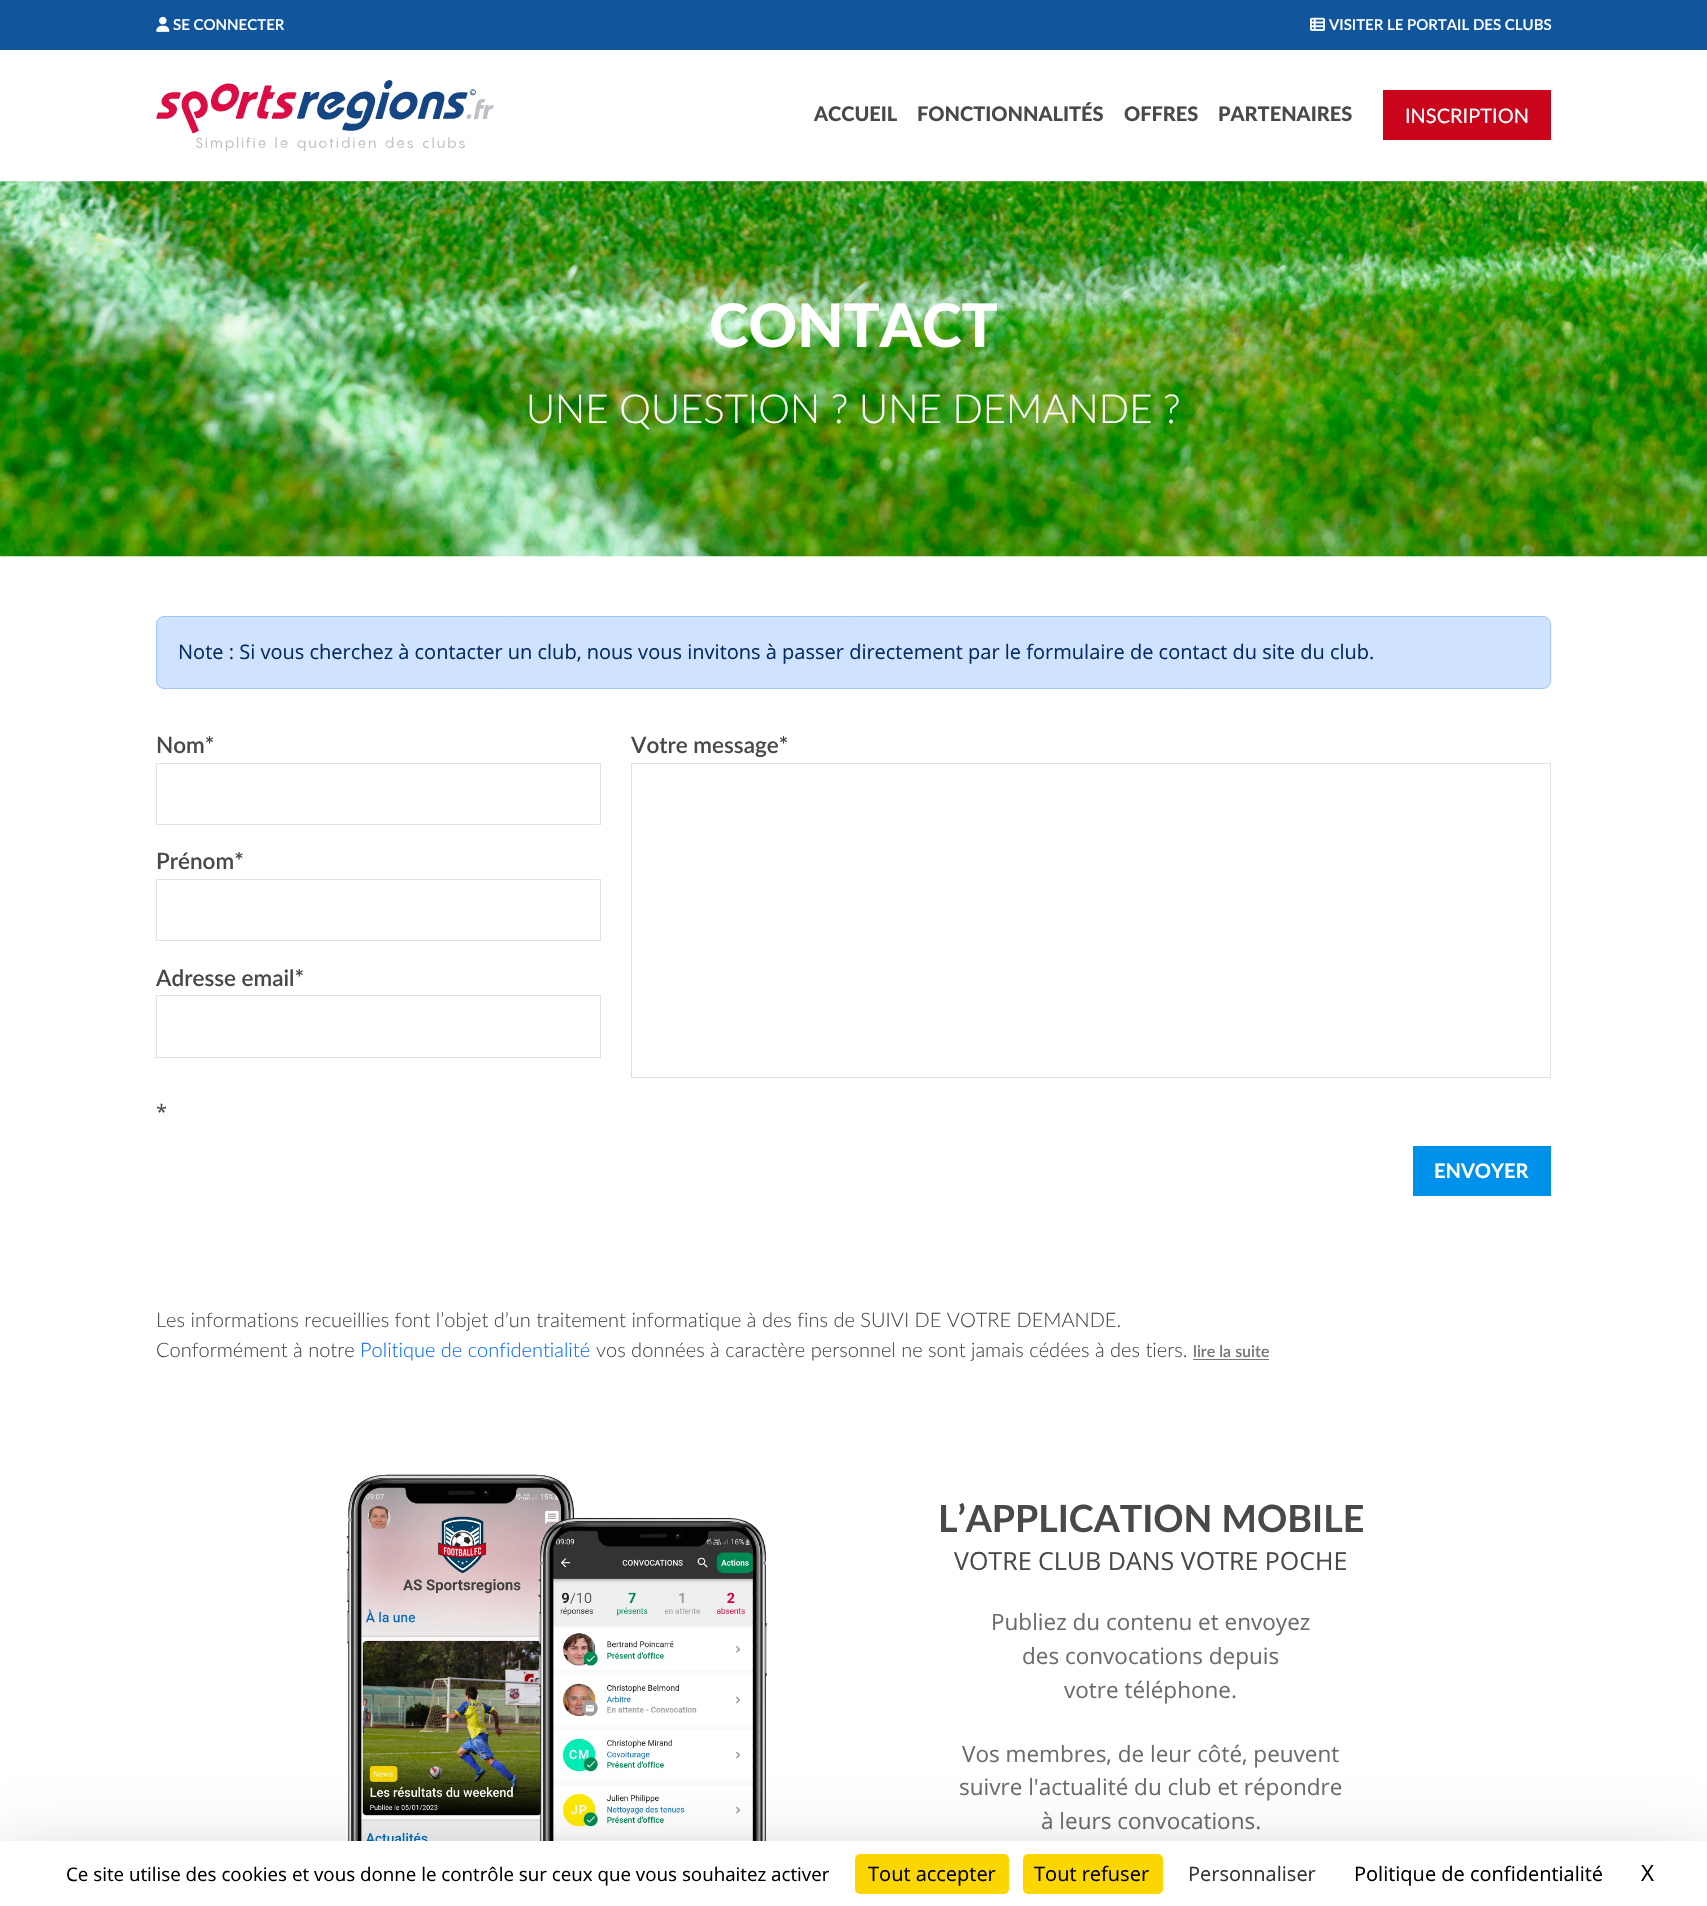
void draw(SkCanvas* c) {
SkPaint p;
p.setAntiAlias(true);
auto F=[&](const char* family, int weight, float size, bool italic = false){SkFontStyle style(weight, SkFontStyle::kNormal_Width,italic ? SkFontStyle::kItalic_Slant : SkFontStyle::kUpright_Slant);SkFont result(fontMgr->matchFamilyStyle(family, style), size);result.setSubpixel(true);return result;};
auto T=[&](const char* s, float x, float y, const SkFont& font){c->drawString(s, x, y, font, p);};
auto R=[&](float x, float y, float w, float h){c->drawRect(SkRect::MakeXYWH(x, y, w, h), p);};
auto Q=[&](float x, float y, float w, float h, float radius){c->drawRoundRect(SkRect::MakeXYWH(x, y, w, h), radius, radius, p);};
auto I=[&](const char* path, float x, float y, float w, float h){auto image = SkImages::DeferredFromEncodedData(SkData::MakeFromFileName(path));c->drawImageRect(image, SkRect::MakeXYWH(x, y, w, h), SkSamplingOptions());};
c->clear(0xffffffff);
p.setColor(0xff11559c);
R(0,0,1707,50);
I("1.png",156,16,14,16);
auto f1 = F("Lato",600,15);
p.setColor(0xffffffff);
T("SE CONNECTER",173,30,f1);
I("2.png",1310,17,15,14);
T("VISITER LE PORTAIL DES CLUBS",1329,30,f1);
I("3.png",156,80,338,71);
auto f2 = F("Lato",900,20);
p.setColor(0xff494949);
T("ACCUEIL",814,121,f2);
T("FONCTIONNALITÉS",917,121,f2);
T("OFFRES",1124,121,f2);
T("PARTENAIRES",1218,121,f2);
p.setColor(0xffc9041b);
R(1383,90,168,50);
auto f3 = F("Lato",400,20);
p.setColor(0xffffffff);
T("INSCRIPTION",1405,123,f3);
I("4.png",0,181,1707,376);
auto f4 = F("Lato",900,60);
T("CONTACT",709,347,f4);
auto f5 = F("Lato",300,40);
T("UNE QUESTION ? UNE DEMANDE ?",526,423,f5);
p.setColor(0xffcfe2ff);
c->drawRoundRect(SkRect::MakeXYWH(156.5,616.5,1394,72),7.5,7.5,p);
p.setStroke(true);
p.setStrokeWidth(1);
p.setColor(0xff9ec5fe);
c->drawRoundRect(SkRect::MakeXYWH(156.5,616.5,1394,72),7.5,7.5,p);
auto f6 = F("Open Sans",400,20);
p.setStroke(false);
p.setColor(0xff052c65);
T("Note : Si vous cherchez à contacter un club, nous vous invitons à passer directement par le formulaire de contact du site du club.",178,659,f6);
auto f7 = F("Lato",600,22.5);
p.setColor(0xff494949);
T("Nom*",156,753,f7);
p.setStroke(true);
p.setColor(0xffdee2e6);
c->drawRect(SkRect::MakeXYWH(156.5,763.5,444,61),p);
p.setStroke(false);
p.setColor(0xff494949);
T("Prénom*",156,869,f7);
p.setStroke(true);
p.setColor(0xffdee2e6);
c->drawRect(SkRect::MakeXYWH(156.5,879.5,444,61),p);
p.setStroke(false);
p.setColor(0xff494949);
T("Adresse email*",156,986,f7);
p.setStroke(true);
p.setColor(0xffdee2e6);
c->drawRect(SkRect::MakeXYWH(156.5,995.5,444,62),p);
p.setStroke(false);
p.setColor(0xff494949);
T("Votre message*",631,753,f7);
p.setStroke(true);
p.setColor(0xffdee2e6);
c->drawRect(SkRect::MakeXYWH(631.5,763.5,919,314),p);
p.setStroke(false);
p.setColor(0xff494949);
T("*",156,1119,f6);
p.setColor(0xff0091ea);
R(1413,1146,138,50);
auto f8 = F("Lato",700,20);
p.setColor(0xffffffff);
T("ENVOYER",1434,1178,f8);
auto f9 = F("Lato",300,20);
p.setColor(0xff494949);
T("Les informations recueillies font l’objet d’un traitement informatique à des fins de SUIVI DE VOTRE DEMANDE.",156,1327,f9);
T("Conformément à notre",156,1357,f9);
p.setColor(0xff0d6efd);
T("Politique de confidentialité",360,1357,f9);
p.setColor(0xff494949);
T("vos données à caractère personnel ne sont jamais cédées à des tiers.",596,1357,f9);
auto f10 = F("Lato",600,16);
p.setColor(0xff777777);
T("lire la suite",1193,1357,f10);
R(1193,1359,76,1);
I("5.png",346,1474,421,367);
auto f11 = F("Lato",700,37.5);
p.setColor(0xff494949);
T("L’APPLICATION MOBILE",938,1532,f11);
auto f12 = F("Open Sans",400,25);
T("VOTRE CLUB DANS VOTRE POCHE",954,1570,f12);
auto f13 = F("Open Sans",400,22.5);
p.setColor(0xff6c6c6c);
T("Publiez du contenu et envoyez",991,1630,f13);
T("des convocations depuis",1022,1664,f13);
T("votre téléphone.",1064,1698,f13);
T("Vos membres, de leur côté, peuvent",962,1762,f13);
T("suivre l'actualité du club et répondre",959,1795,f13);
T("à leurs convocations.",1041,1829,f13);
p.setColor(0x40000000);
p.setMaskFilter(SkMaskFilter::MakeBlur(kNormal_SkBlurStyle, 37.5));
c->drawRect(SkRect::MakeXYWH(0,1866,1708,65),p);
p.setMaskFilter(nullptr);
p.setColor(0xffffffff);
R(0,1841,1707,65);
auto f14 = F("Open Sans",400,18.75);
p.setColor(0xff000000);
T("Ce site utilise des cookies et vous donne le contrôle sur ceux que vous souhaitez activer",66,1881,f14);
p.setColor(0xfffbd600);
Q(855,1854,154,40,5);
p.setColor(0xff000000);
T("Tout accepter",868,1881,f6);
p.setColor(0xfffbd600);
Q(1023,1854,140,40,5);
p.setColor(0xff000000);
T("Tout refuser",1034,1881,f6);
p.setColor(0xff333333);
T("Personnaliser",1188,1881,f6);
p.setColor(0xff000000);
T("Politique de confidentialité",1354,1881,f6);
T("X",1641,1881,f13);
}
